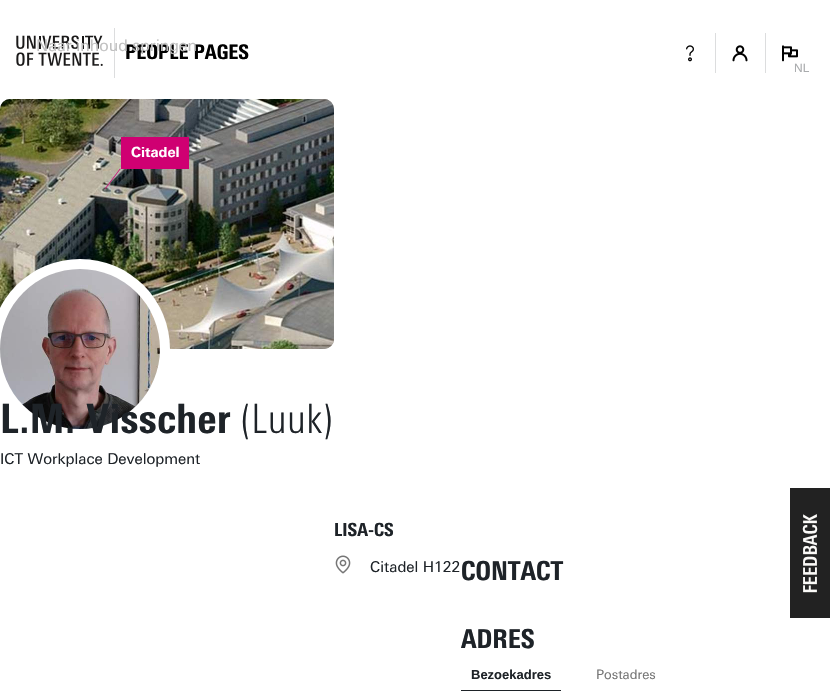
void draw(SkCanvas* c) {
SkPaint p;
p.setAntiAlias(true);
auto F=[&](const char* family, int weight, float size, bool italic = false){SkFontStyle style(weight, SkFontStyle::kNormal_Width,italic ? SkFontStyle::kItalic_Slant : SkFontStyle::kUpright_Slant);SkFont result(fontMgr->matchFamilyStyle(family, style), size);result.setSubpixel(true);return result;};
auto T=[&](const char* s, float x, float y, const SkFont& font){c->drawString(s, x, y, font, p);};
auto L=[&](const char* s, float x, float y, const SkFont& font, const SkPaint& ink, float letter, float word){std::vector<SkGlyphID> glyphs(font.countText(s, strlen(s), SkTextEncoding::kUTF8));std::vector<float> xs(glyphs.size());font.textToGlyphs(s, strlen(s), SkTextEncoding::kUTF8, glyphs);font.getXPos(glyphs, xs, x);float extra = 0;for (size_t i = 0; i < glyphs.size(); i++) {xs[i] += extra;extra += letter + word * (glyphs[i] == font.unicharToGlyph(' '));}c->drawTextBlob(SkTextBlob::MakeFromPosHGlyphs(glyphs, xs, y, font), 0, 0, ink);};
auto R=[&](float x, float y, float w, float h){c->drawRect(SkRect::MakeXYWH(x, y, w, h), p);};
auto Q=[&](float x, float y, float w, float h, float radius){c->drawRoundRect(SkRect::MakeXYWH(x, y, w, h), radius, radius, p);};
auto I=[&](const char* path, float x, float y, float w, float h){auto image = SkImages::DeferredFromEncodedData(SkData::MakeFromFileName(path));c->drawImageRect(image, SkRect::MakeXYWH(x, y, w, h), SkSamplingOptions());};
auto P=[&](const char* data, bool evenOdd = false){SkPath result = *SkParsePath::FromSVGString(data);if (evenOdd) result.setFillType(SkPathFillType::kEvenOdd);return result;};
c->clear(0xffffffff);
I("1.png",16,35,87,31);
p.setColor(0xffdcddde);
R(114,28,1,50);
auto f1 = F("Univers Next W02",900,20);
p.setColor(0xff000000);
T("PEOPLE PAGES",125,59,f1);
auto f2 = F("Univers Next W02",400,16);
p.setColor(0xffc0c0c0);
T("Naar inhoud springen",36,51,f2);
I("2.png",686,45,8,17);
p.setColor(0xffdcddde);
R(715,33,1,40);
I("3.png",732,45,16,17);
R(765,33,1,40);
I("4.png",782,45,16,17);
auto f3 = F("Liberation Sans",400,12);
p.setColor(0xffaaacae);
T("NL",794,72,f3);
p.setColor(0xff9f9b92);
Q(0,99,334,250,10);
I("5.png",0,99,334,250);
p.setColor(0xffcf0072);
R(121,137,68,32);
auto f4 = F("Univers Next W02",700,14);
p.setColor(0xffffffff);
T("Citadel",131,157,f4);
p.setColor(0xffcf0072);
c->drawPath(P("M105.5 189l15-20l-.5-.5l-15 20z"),p);
p.setColor(0xffffffff);
c->drawCircle(80,349,90,p);
I("6.png",0,269,160,160);
auto f5 = F("Univers Next W02",900,40.5);
p.setColor(0xff1e2328);
L("L.M. Visscher",0,433,f5,p,.5,0);
auto f6 = F("Univers Next W02",300,40.5);
L("(Luuk)",241,433,f6,p,.5,0);
auto f7 = F("Univers Next W02",400,15);
T("ICT Workplace Development",0,464,f7);
auto f8 = F("Univers Next W02",900,18);
T("LISA-CS",334,536,f8);
I("7.png",335,555,16,19);
T("Citadel H122",370,572,f7);
auto f9 = F("Univers Next W02",900,26);
T("CONTACT",461,580,f9);
T("ADRES",461,648,f9);
auto f10 = F("Liberation Sans",700,13);
T("Bezoekadres",471,679,f10);
R(461,690,100,1);
auto f11 = F("Univers Next W02",400,13);
p.setColor(0xff767676);
T("Postadres",596,679,f11);
I("8.png",790,488,40,130);
}
